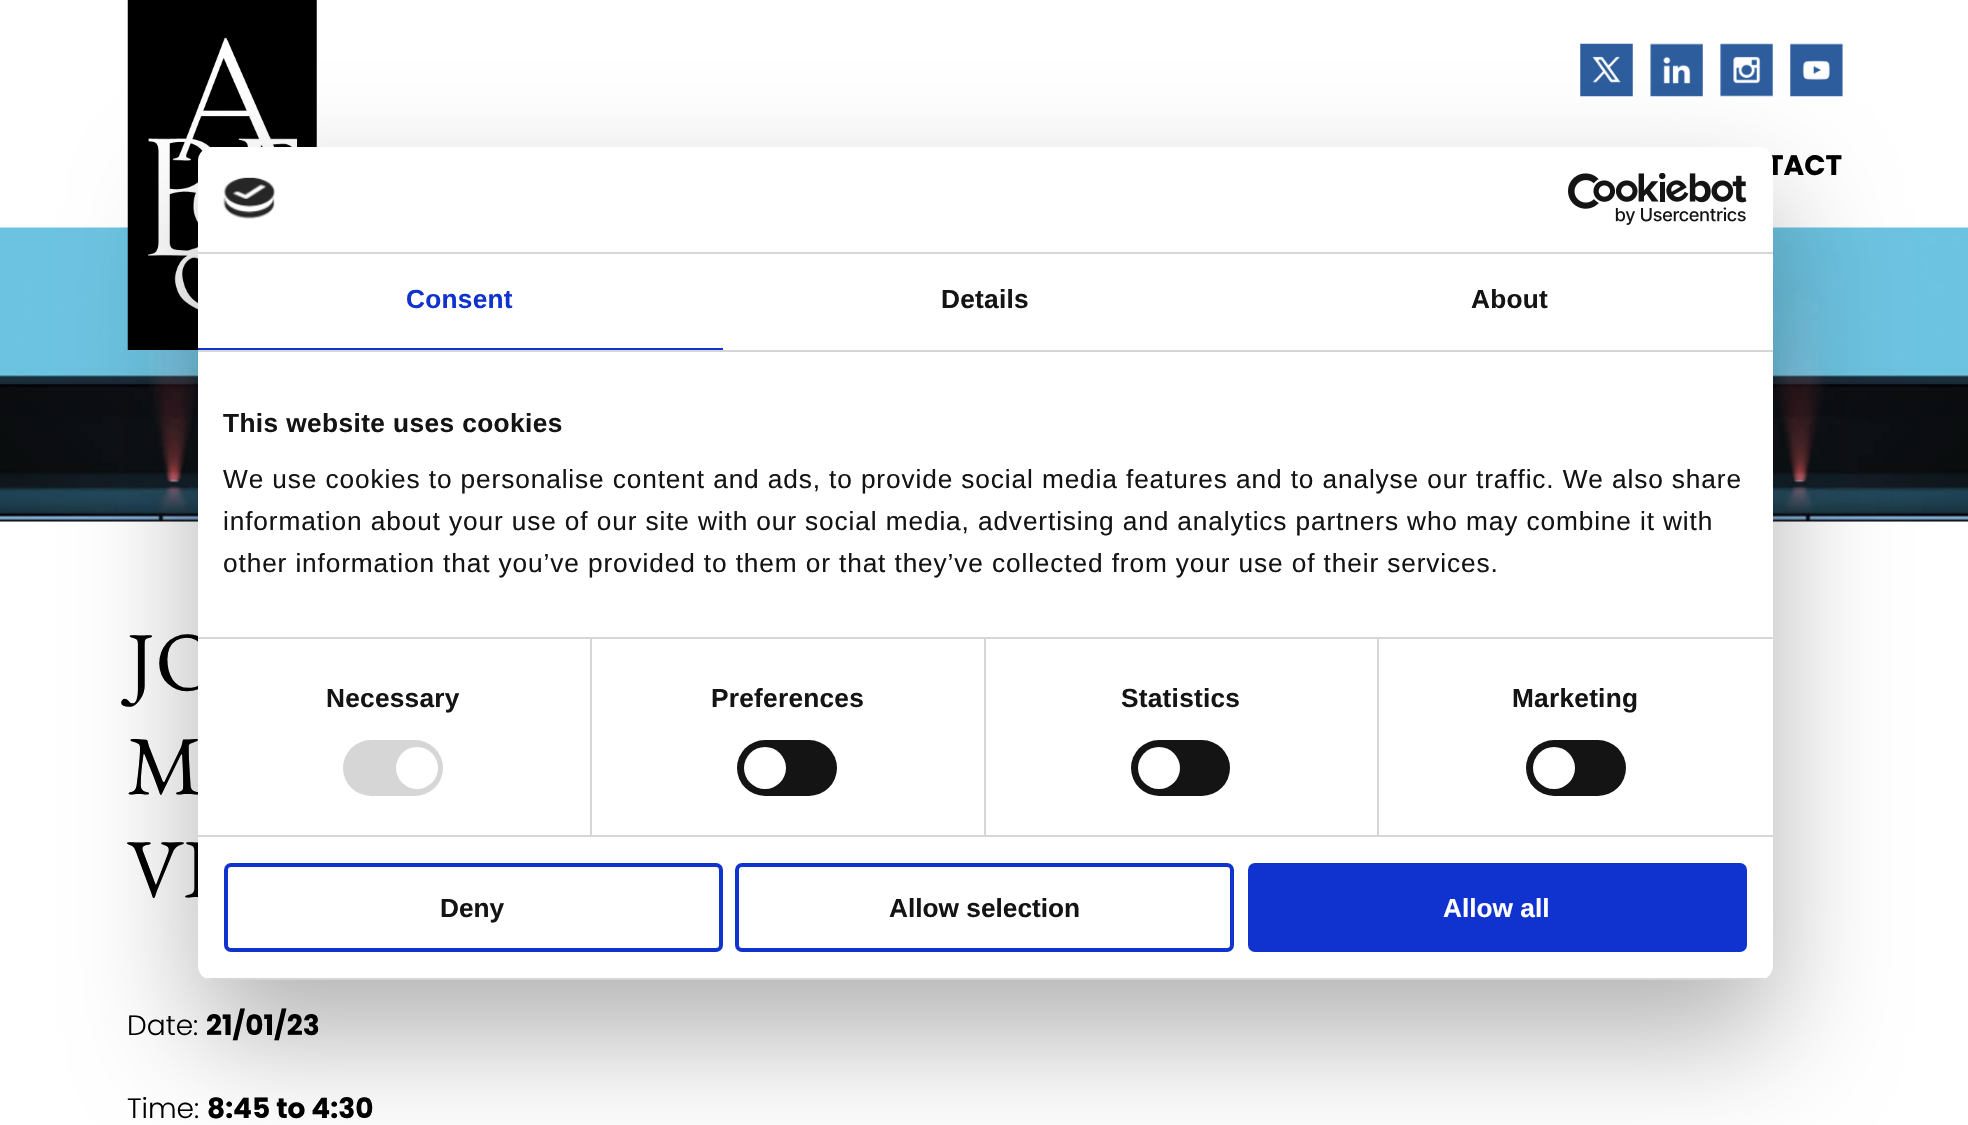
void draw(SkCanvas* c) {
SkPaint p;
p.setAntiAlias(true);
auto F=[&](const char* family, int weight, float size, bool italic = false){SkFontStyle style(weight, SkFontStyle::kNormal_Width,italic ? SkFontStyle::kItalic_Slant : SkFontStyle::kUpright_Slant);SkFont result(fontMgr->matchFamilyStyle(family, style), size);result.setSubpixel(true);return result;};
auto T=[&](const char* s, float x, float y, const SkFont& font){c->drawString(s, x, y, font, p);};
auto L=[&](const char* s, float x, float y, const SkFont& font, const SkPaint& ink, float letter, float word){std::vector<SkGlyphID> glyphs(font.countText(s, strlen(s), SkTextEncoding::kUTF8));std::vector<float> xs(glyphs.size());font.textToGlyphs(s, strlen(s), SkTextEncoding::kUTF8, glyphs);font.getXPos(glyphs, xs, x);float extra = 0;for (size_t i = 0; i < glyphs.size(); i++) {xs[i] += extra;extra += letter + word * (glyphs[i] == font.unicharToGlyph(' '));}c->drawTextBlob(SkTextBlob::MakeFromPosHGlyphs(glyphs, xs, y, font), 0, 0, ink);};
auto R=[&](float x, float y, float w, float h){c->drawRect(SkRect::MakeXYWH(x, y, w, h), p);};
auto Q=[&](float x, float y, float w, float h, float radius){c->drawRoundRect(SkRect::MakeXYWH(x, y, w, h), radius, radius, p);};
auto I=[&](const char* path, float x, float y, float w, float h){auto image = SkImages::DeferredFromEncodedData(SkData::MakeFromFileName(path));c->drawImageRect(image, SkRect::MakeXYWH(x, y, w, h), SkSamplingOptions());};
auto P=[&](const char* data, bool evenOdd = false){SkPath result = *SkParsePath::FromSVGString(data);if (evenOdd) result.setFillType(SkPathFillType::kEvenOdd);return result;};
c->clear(0xffffffff);
I("8.png",0,227,1968,295);
I("1.png",127,0,190,350);
I("2.png",1580,43,53,54);
I("3.png",1650,43,53,54);
I("4.png",1720,43,53,54);
I("5.png",1790,43,53,54);
auto f1 = F("Poppins",700,28);
p.setColor(0xff000000);
T("TACT",1767,175,f1);
p.setColor(0x4d000000);
p.setMaskFilter(SkMaskFilter::MakeBlur(kNormal_SkBlurStyle, 59.5));
c->drawRoundRect(SkRect::MakeXYWH(198,203,1575,833),14,14,p);
p.setMaskFilter(nullptr);
auto f2 = F("EB Garamond",400,84);
p.setColor(0xff000000);
T("JO",127,690,f2);
T("M",127,794,f2);
T("VI",127,897,f2);
p.setColor(0xffffffff);
Q(198,147,1575,833,14);
p.setColor(0xffd6d6d6);
R(198,252,1575,2);
I("6.png",223,177,53,42);
I("7.png",1568,173,179,52);
R(198,350,1575,2);
p.setColor(0xff1032cf);
R(198,348,525,2);
auto f3 = F("Liberation Sans",700,26.25);
L("Consent",406,308,f3,p,.25,0);
p.setColor(0xff141414);
L("Details",941,308,f3,p,.25,0);
L("About",1471,308,f3,p,.25,0);
p.setColor(0xffd6d6d6);
R(198,637,1575,2);
p.setColor(0xff141414);
L("This website uses cookies",223,432,f3,p,.4,0);
auto f4 = F("Liberation Sans",400,26.25);
L("We use cookies to personalise content and ads, to provide social media features and to analyse our traffic. We also share",223,488,f4,p,.88,0);
L("information about your use of our site with our social media, advertising and analytics partners who may combine it with",223,530,f4,p,.88,0);
L("other information that you’ve provided to them or that they’ve collected from your use of their services.",223,572,f4,p,.88,0);
p.setColor(0xffd6d6d6);
R(198,835,1575,2);
R(590,639,2,196);
p.setColor(0xff141414);
L("Necessary",326,707,f3,p,.25,0);
p.setColor(0xffd6d6d6);
Q(343,740,100,56,28);
p.setColor(0xffffffff);
c->drawCircle(417,768,21,p);
p.setColor(0xffd6d6d6);
R(984,639,2,196);
p.setColor(0xff141414);
L("Preferences",711,707,f3,p,.25,0);
Q(737,740,100,56,28);
p.setColor(0xffffffff);
c->drawCircle(765,768,21,p);
p.setColor(0xffd6d6d6);
R(1377,639,2,196);
p.setColor(0xff141414);
L("Statistics",1121,707,f3,p,.25,0);
Q(1131,740,99,56,28);
p.setColor(0xffffffff);
c->drawCircle(1159,768,21,p);
p.setColor(0xff141414);
L("Marketing",1512,707,f3,p,.25,0);
Q(1526,740,100,56,28);
p.setColor(0xffffffff);
c->drawCircle(1554,768,21,p);
c->save();
c->clipPath(P("M212 147h1547c7.5 0 14 6.5 14 14v805c0 7.5-6.5 14-14 14h-1547c-7.5 0-14-6.5-14-14v-805c0-7.5 6.5-14 14-14z"),true);
p.setColor(0xffd6d6d6);
R(198,978,1575,2);
c->restore();
p.setStroke(true);
p.setStrokeWidth(4);
p.setColor(0xff1032cf);
c->drawRoundRect(SkRect::MakeXYWH(226,865,495,85),5,5,p);
p.setStroke(false);
p.setColor(0xff141414);
T("Deny",440,917,f3);
p.setStroke(true);
p.setColor(0xff1032cf);
c->drawRoundRect(SkRect::MakeXYWH(737,865,495,85),5,5,p);
p.setStroke(false);
p.setColor(0xff141414);
T("Allow selection",889,917,f3);
p.setColor(0xff1032cf);
c->drawRoundRect(SkRect::MakeXYWH(1250,865,495,85),5,5,p);
p.setStroke(true);
c->drawRoundRect(SkRect::MakeXYWH(1250,865,495,85),5,5,p);
p.setStroke(false);
p.setColor(0xffffffff);
T("Allow all",1443,917,f3);
auto f5 = F("Poppins",300,28);
p.setColor(0xff000000);
T("Date:",127,1035,f5);
T("21/01/23",206,1035,f1);
T("Time:",127,1118,f5);
T("8:45 to 4:30",207,1118,f1);
}
